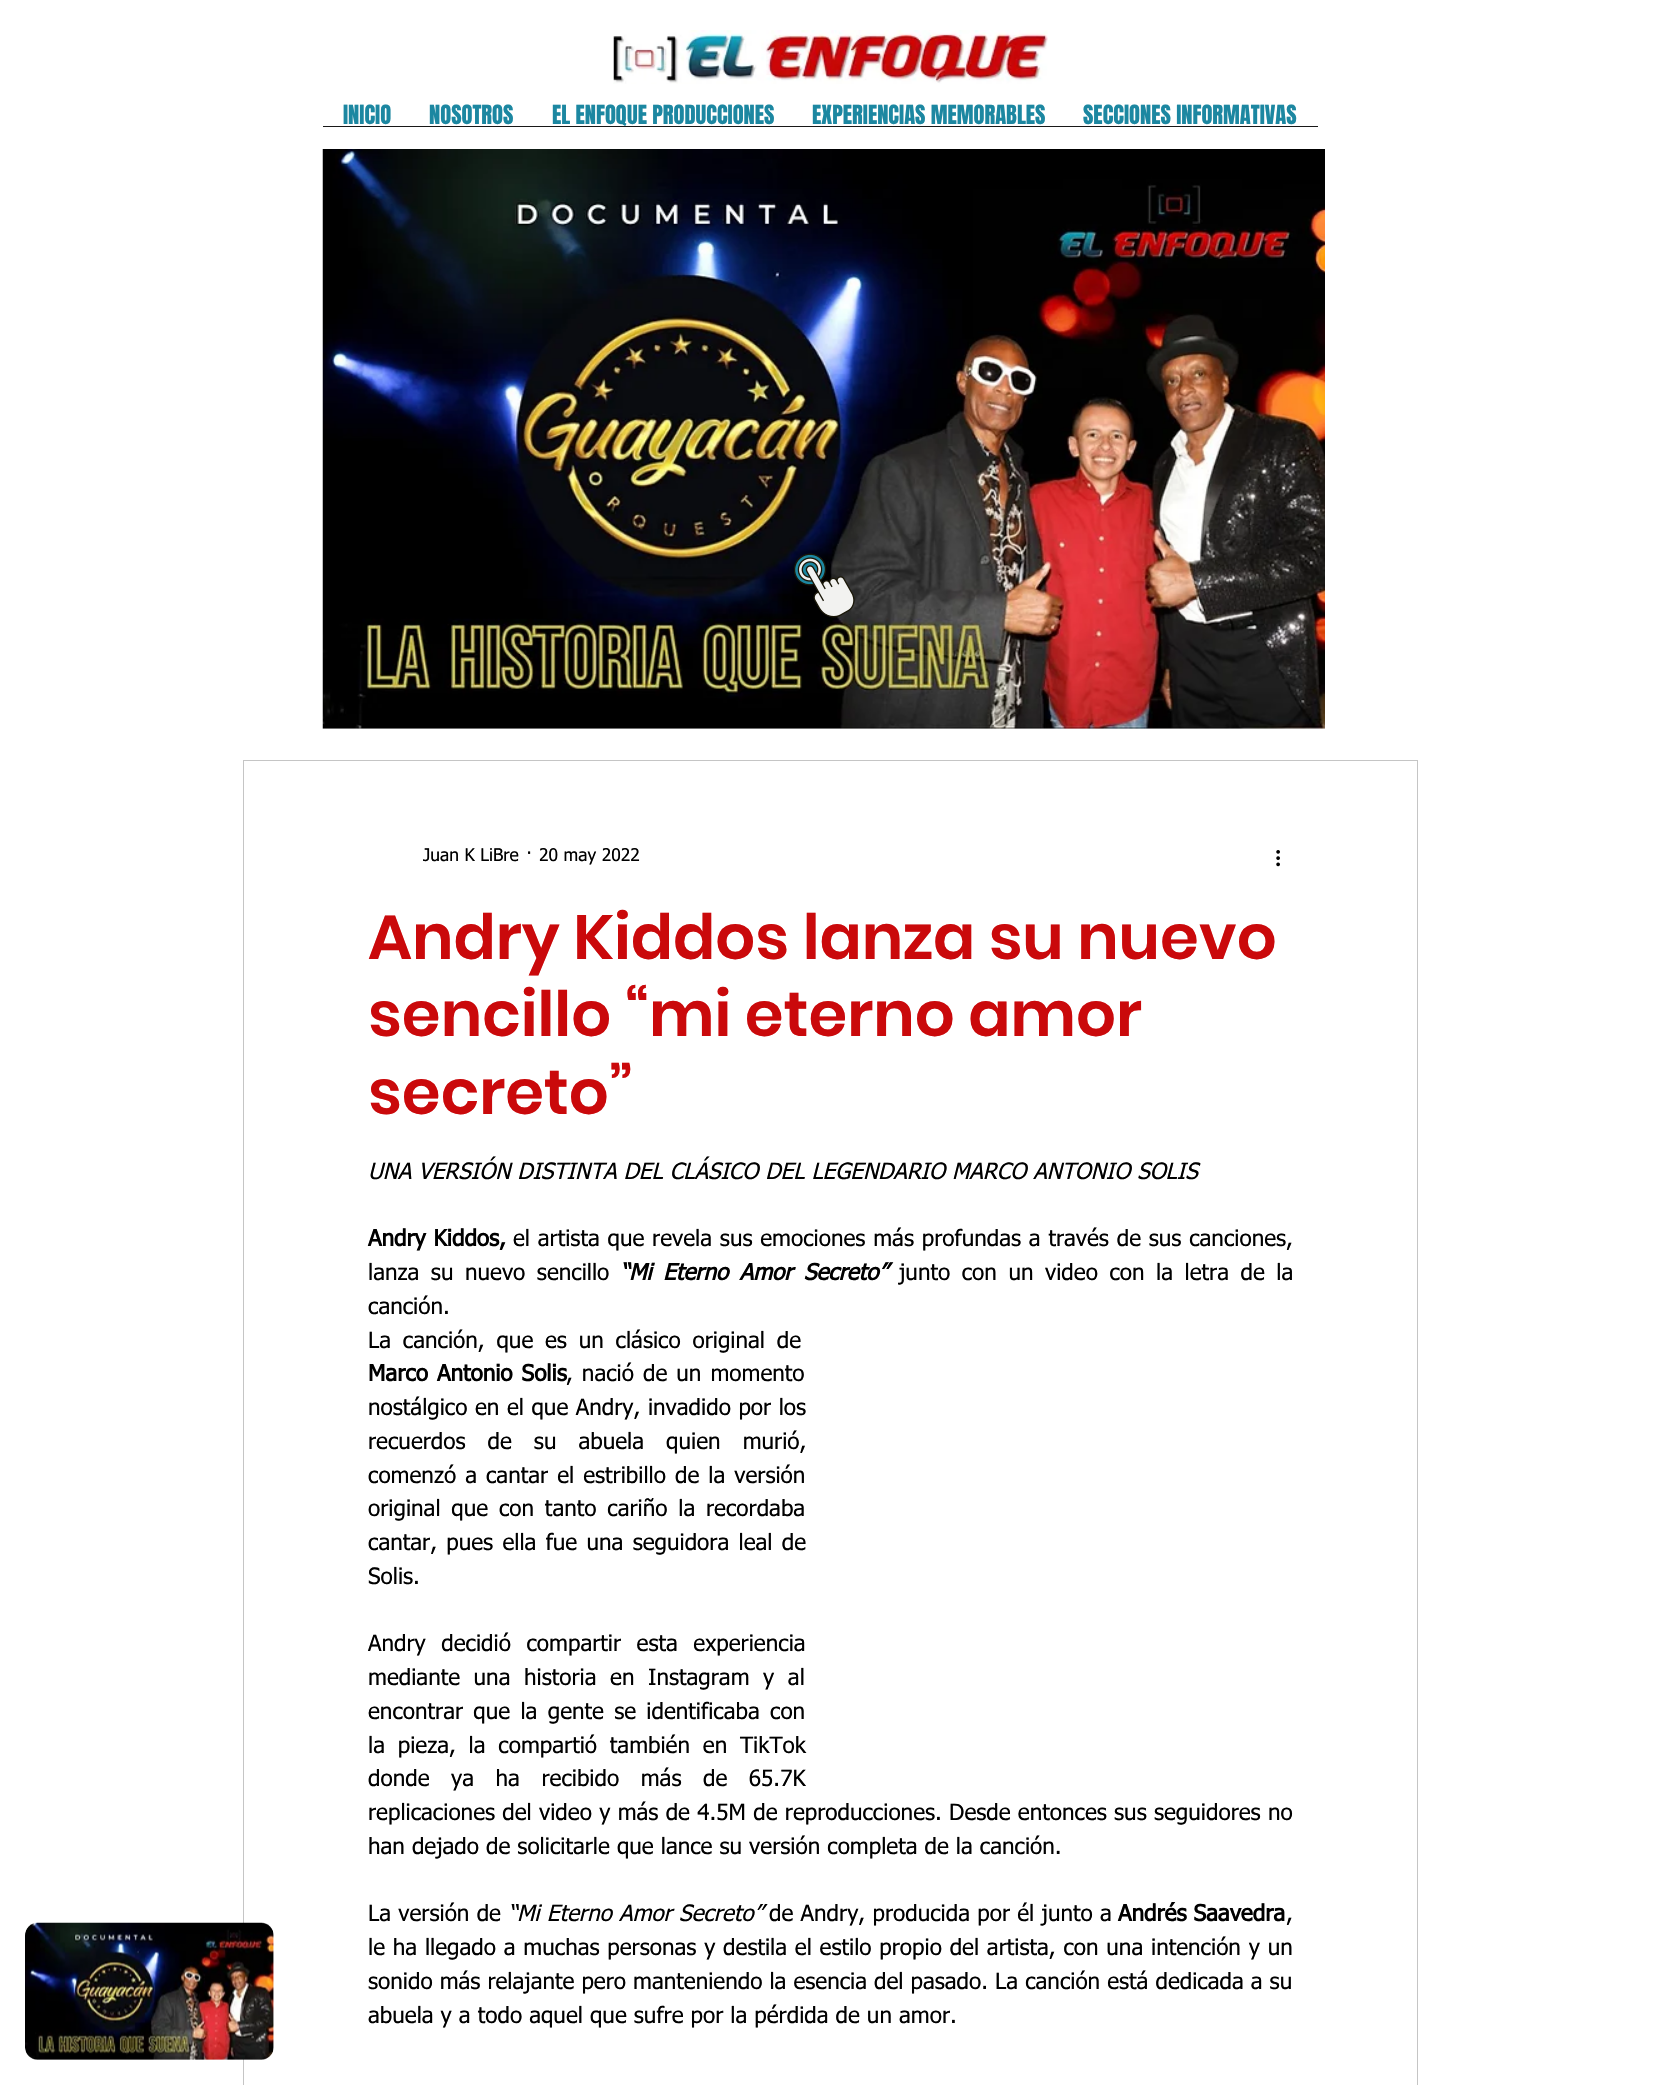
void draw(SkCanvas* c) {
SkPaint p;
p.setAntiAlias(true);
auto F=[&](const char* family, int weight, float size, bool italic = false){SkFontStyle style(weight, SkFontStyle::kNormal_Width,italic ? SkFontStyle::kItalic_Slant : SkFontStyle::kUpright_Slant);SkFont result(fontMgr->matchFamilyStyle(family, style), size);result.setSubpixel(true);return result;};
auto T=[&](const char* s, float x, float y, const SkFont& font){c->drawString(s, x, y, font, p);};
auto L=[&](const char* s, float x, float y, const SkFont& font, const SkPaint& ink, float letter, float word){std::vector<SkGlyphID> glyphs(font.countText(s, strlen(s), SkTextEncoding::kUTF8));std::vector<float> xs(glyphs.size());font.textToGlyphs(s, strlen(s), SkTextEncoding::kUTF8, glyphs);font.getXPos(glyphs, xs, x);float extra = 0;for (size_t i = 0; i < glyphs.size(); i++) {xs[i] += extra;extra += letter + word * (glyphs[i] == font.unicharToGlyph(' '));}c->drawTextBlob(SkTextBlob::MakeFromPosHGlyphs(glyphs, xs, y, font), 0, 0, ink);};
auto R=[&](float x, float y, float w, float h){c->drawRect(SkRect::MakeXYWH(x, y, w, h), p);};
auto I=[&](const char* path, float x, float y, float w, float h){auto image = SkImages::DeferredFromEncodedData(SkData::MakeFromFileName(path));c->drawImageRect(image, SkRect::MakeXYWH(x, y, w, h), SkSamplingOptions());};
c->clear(0xffffffff);
I("1.png",613,30,435,54);
auto f1 = F("Anton",400,22.5);
p.setColor(0xff1c87a1);
T("INICIO",343,124,f1);
T("NOSOTROS",429,124,f1);
T("EL ENFOQUE PRODUCCIONES",552,124,f1);
T("EXPERIENCIAS MEMORABLES",812,124,f1);
T("SECCIONES INFORMATIVAS",1083,124,f1);
p.setColor(0xff181818);
R(323,126,995,1);
p.setStroke(true);
p.setStrokeWidth(1);
p.setColor(0xffc5c5c5);
c->drawRect(SkRect::MakeXYWH(243.5,760.5,1174,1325),p);
I("2.png",25,1922,249,138);
I("3.png",322,149,1003,580);
I("4.png",794,553,61,65);
auto f2 = F("tahoma",400,17.5);
p.setStroke(false);
p.setColor(0xff000000);
T("Juan K LiBre",423,861,f2);
T("·",526,861,f2);
T("20 may 2022",539,861,f2);
I("5.png",1276,850,4,17);
auto f3 = F("Poppins",600,62.5);
p.setColor(0xffca090b);
T("Andry Kiddos lanza su nuevo",368,959,f3);
T("sencillo “mi eterno amor",368,1036,f3);
T("secreto”",368,1114,f3);
auto f4 = F("tahoma",400,22.5,true);
p.setColor(0xff000000);
T("UNA VERSIÓN DISTINTA DEL CLÁSICO DEL LEGENDARIO MARCO ANTONIO SOLIS",368,1179,f4);
auto f5 = F("tahoma",700,22.5);
L("Andry Kiddos,",368,1246,f5,p,0,.75);
auto f6 = F("tahoma",400,22.5);
L("el artista que revela sus emociones más profundas a través de sus canciones,",513,1246,f6,p,0,.75);
L("lanza su nuevo sencillo",368,1280,f6,p,0,4.5);
auto f7 = F("tahoma",700,22.5,true);
L("“Mi Eterno Amor Secreto”",620,1280,f7,p,0,4.5);
L("junto con un video con la letra de la",899,1280,f6,p,0,4.5);
T("canción.",368,1314,f6);
L("La canción, que es un clásico original de",368,1348,f6,p,0,4.75);
L("Marco Antonio Solis",368,1381,f5,p,0,2);
L(", nació de un momento",566,1381,f6,p,0,2);
L("nostálgico en el que Andry, invadido por los",368,1415,f6,p,0,.5);
L("recuerdos de su abuela quien murió,",368,1449,f6,p,0,15);
L("comenzó a cantar el estribillo de la versión",368,1483,f6,p,0,2);
L("original que con tanto cariño la recordaba",368,1516,f6,p,0,3.75);
L("cantar, pues ella fue una seguidora leal de",368,1550,f6,p,0,2.25);
T("Solis.",368,1584,f6);
L("Andry decidió compartir esta experiencia",368,1651,f6,p,0,8.5);
L("mediante una historia en Instagram y al",368,1685,f6,p,0,6.5);
L("encontrar que la gente se identificaba con",368,1719,f6,p,0,3.25);
L("la pieza, la compartió también en TikTok",368,1753,f6,p,0,5.75);
L("donde ya ha recibido más de 65.7K",368,1786,f6,p,0,14.5);
L("replicaciones del video y más de 4.5M de reproducciones. Desde entonces sus seguidores no",368,1820,f6,p,0,.25);
T("han dejado de solicitarle que lance su versión completa de la canción.",368,1854,f6);
L("La versión de",368,1921,f6,p,0,.25);
L("“Mi Eterno Amor Secreto”",508,1921,f4,p,0,.25);
L("de Andry, producida por él junto a",769,1921,f6,p,0,.25);
T("Andrés Saavedra",1118,1921,f5);
T(",",1286,1921,f6);
L("le ha llegado a muchas personas y destila el estilo propio del artista, con una intención y un",368,1955,f6,p,0,.75);
T("sonido más relajante pero manteniendo la esencia del pasado. La canción está dedicada a su",368,1989,f6);
T("abuela y a todo aquel que sufre por la pérdida de un amor.",368,2023,f6);
}
